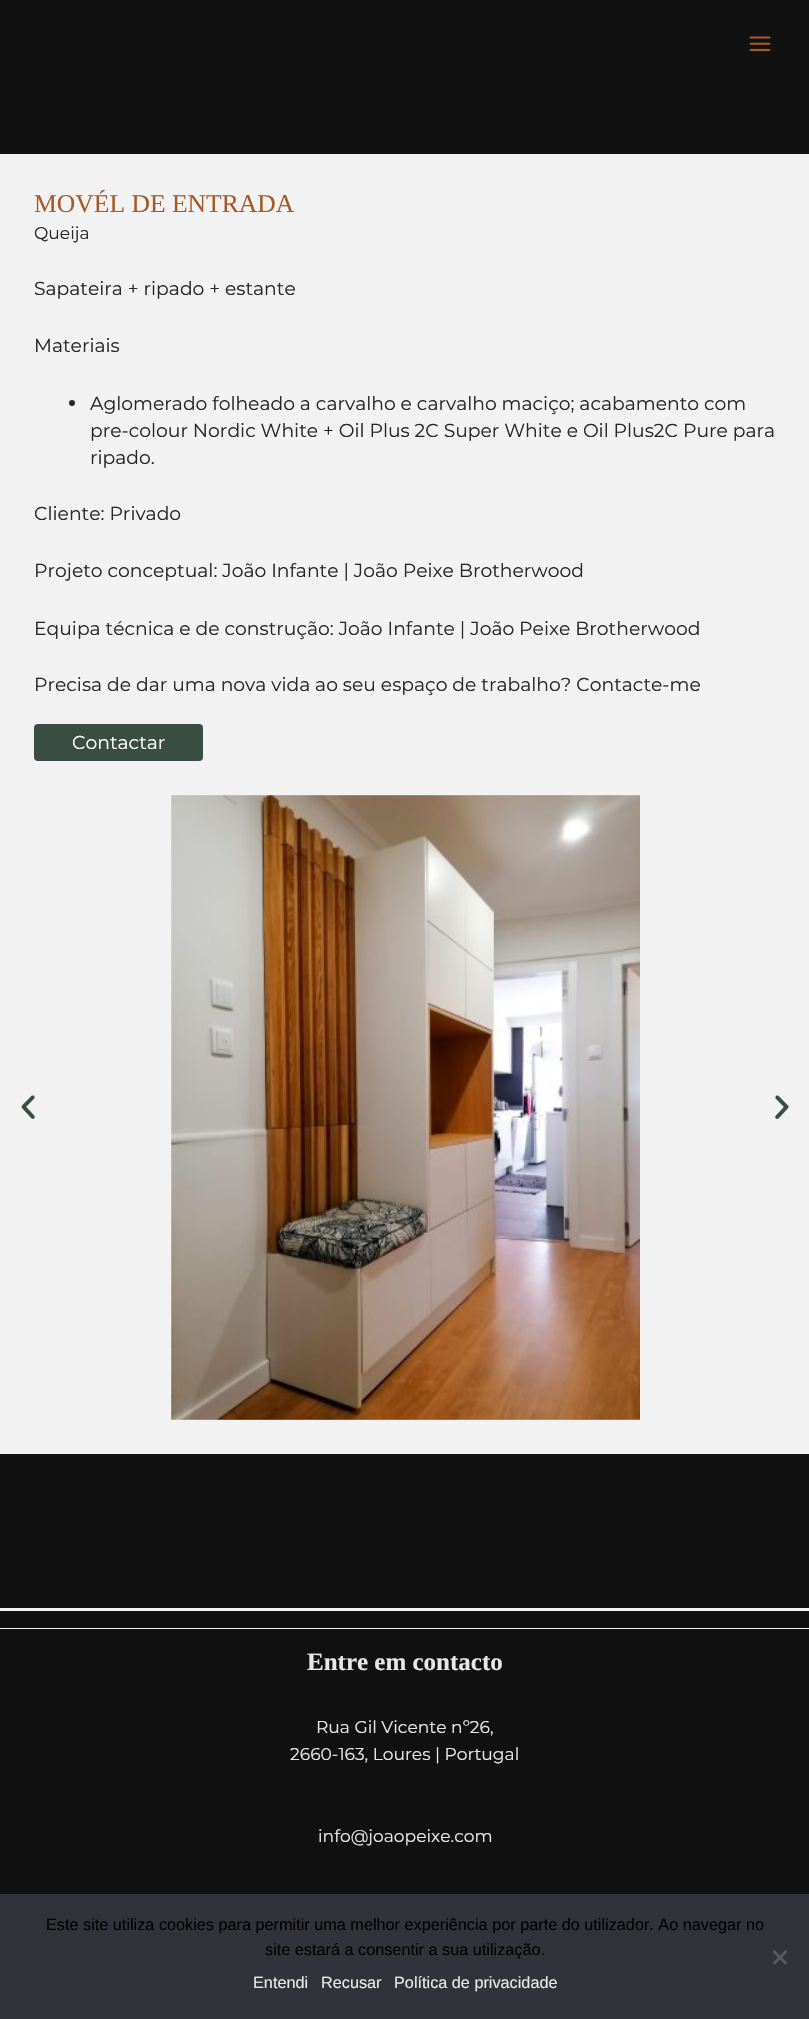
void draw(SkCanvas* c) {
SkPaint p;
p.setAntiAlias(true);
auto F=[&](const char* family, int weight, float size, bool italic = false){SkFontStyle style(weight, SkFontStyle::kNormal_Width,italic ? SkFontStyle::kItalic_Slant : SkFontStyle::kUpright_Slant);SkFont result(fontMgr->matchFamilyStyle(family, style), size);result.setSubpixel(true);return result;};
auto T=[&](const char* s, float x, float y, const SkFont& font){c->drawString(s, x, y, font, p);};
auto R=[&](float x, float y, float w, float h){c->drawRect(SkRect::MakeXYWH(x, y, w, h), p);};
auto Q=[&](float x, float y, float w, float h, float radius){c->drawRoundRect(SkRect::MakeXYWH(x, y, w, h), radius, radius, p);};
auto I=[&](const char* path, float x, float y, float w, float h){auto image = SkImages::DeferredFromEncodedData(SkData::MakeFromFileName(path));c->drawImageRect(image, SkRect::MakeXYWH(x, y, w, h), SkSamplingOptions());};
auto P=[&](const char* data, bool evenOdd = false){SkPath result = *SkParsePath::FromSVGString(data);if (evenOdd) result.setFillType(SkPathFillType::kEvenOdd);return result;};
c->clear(0xff111111);
I("1.png",749,36,22,16);
p.setColor(0xfff2f2f2);
R(0,154,809,1300);
auto f1 = F("Liberation Serif",400,25.6);
p.setColor(0xffa45b28);
T("MOVÉL DE ENTRADA",34,212,f1);
auto f2 = F("Montserrat",100,17.1);
p.setColor(0xff282627);
T("Queija",34,239,f2);
auto f3 = F("Montserrat",100,18.75);
T("Sapateira + ripado + estante",34,295,f3);
T("Materiais",34,352,f3);
c->drawCircle(72,403,3,p);
T("Aglomerado folheado a carvalho e carvalho maciço; acabamento com",90,410,f3);
T("pre-colour Nordic White + Oil Plus 2C Super White e Oil Plus2C Pure para",90,437,f3);
T("ripado.",90,464,f3);
T("Cliente: Privado",34,520,f3);
T("Projeto conceptual: João Infante | João Peixe Brotherwood",34,577,f3);
T("Equipa técnica e de construção: João Infante | João Peixe Brotherwood",34,635,f3);
T("Precisa de dar uma nova vida ao seu espaço de trabalho? Contacte-me",34,691,f3);
p.setColor(0xff394d42);
Q(34,724,169,37,4);
p.setColor(0xffffffff);
T("Contactar",72,749,f3);
I("2.png",21,1095,14,24);
I("3.png",171,795,469,625);
I("4.png",775,1095,14,24);
p.setColor(0xfff2f2f2);
R(0,1608,809,3);
R(0,1628,809,1);
auto f4 = F("Liberation Serif",700,25);
p.setColor(0xffe8e8e8);
T("Entre em contacto",307,1670,f4);
T("Rua Gil Vicente nº26,",316,1733,f2);
T("2660-163, Loures | Portugal",290,1760,f2);
T("info@joaopeixe.com",318,1842,f2);
p.setColor(0xff32323a);
R(0,1894,809,125);
auto f5 = F("Liberation Sans",400,16.25);
p.setColor(0xff000000);
T("Este site utiliza cookies para permitir uma melhor experiência por parte do utilizador. Ao navegar no",46,1930,f5);
T("site estará a consentir a sua utilização.",265,1955,f5);
p.setColor(0xff59595d);
c->drawPath(P("M785.5 1950l2 2l-13 13l-2-2z"),p);
c->drawPath(P("M772.5 1952l2-2l13 13l-2 2z"),p);
p.setColor(0xffe8e8e8);
T("Entendi",253,1988,f5);
T("Recusar",321,1988,f5);
T("Política de privacidade",394,1988,f5);
}
